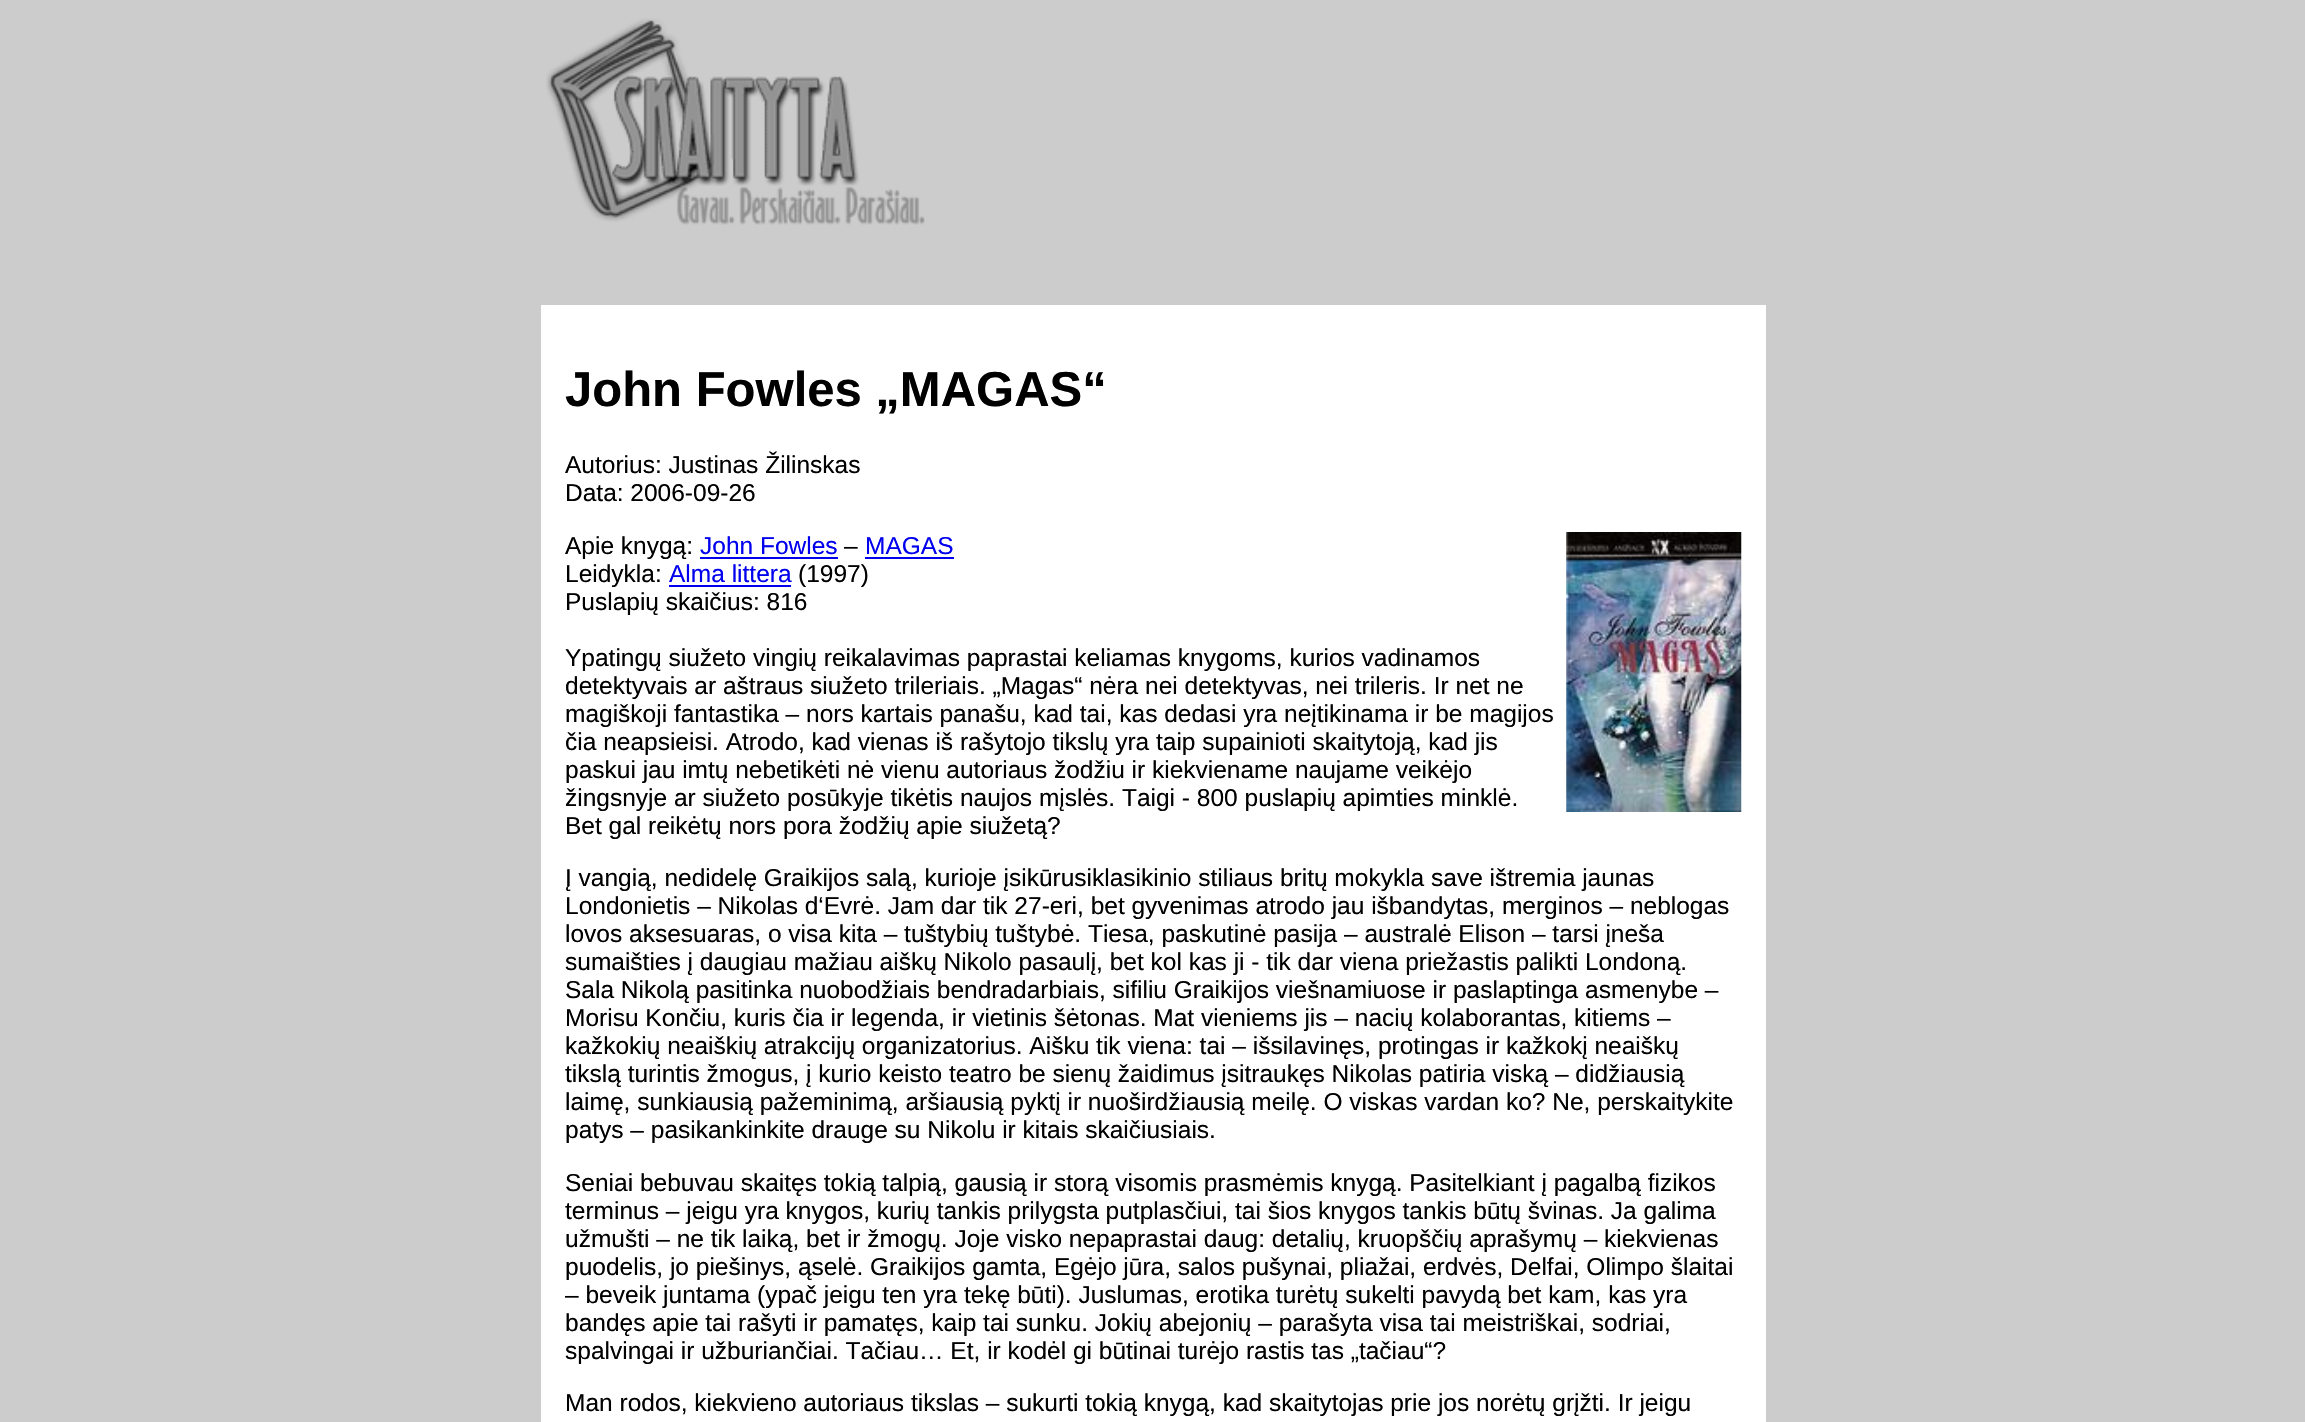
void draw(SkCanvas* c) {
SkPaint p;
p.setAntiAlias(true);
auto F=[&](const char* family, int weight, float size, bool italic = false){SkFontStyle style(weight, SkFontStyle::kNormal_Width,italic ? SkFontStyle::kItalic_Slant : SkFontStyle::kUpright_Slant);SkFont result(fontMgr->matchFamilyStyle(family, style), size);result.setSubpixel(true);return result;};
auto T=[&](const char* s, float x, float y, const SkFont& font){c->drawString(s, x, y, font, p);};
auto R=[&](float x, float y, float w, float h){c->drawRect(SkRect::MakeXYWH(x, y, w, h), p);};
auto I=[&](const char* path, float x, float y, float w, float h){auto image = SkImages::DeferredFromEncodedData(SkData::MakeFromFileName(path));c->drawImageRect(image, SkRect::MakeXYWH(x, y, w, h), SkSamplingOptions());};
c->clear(0xffcccccc);
I("1.png",546,18,379,207);
p.setColor(0xffffffff);
R(541,305,1225,1117);
auto f1 = F("Liberation Sans",700,49);
p.setColor(0xff000000);
T("John Fowles „MAGAS“",565,406,f1);
auto f2 = F("Liberation Sans",400,24.5);
T("Autorius: Justinas Žilinskas",565,473,f2);
T("Data: 2006-09-26",565,501,f2);
T("Apie knygą:",565,554,f2);
p.setColor(0xff0000ee);
T("John Fowles",700,554,f2);
R(700,557,138,2);
p.setColor(0xff000000);
T("–",844,554,f2);
p.setColor(0xff0000ee);
T("MAGAS",865,554,f2);
R(865,557,89,2);
I("2.png",1566,532,176,280);
p.setColor(0xff000000);
T("Leidykla:",565,582,f2);
p.setColor(0xff0000ee);
T("Alma littera",669,582,f2);
R(669,585,122,2);
p.setColor(0xff000000);
T("(1997)",798,582,f2);
T("Puslapių skaičius: 816",565,610,f2);
T("Ypatingų siužeto vingių reikalavimas paprastai keliamas knygoms, kurios vadinamos",565,666,f2);
T("detektyvais ar aštraus siužeto trileriais. „Magas“ nėra nei detektyvas, nei trileris. Ir net ne",565,694,f2);
T("magiškoji fantastika – nors kartais panašu, kad tai, kas dedasi yra neįtikinama ir be magijos",565,722,f2);
T("čia neapsieisi. Atrodo, kad vienas iš rašytojo tikslų yra taip supainioti skaitytoją, kad jis",565,750,f2);
T("paskui jau imtų nebetikėti nė vienu autoriaus žodžiu ir kiekviename naujame veikėjo",565,778,f2);
T("žingsnyje ar siužeto posūkyje tikėtis naujos mįslės. Taigi - 800 puslapių apimties minklė.",565,806,f2);
T("Bet gal reikėtų nors pora žodžių apie siužetą?",565,834,f2);
T("Į vangią, nedidelę Graikijos salą, kurioje įsikūrusiklasikinio stiliaus britų mokykla save ištremia jaunas",565,886,f2);
T("Londonietis – Nikolas d‘Evrė. Jam dar tik 27-eri, bet gyvenimas atrodo jau išbandytas, merginos – neblogas",565,914,f2);
T("lovos aksesuaras, o visa kita – tuštybių tuštybė. Tiesa, paskutinė pasija – australė Elison – tarsi įneša",565,942,f2);
T("sumaišties į daugiau mažiau aiškų Nikolo pasaulį, bet kol kas ji - tik dar viena priežastis palikti Londoną.",565,970,f2);
T("Sala Nikolą pasitinka nuobodžiais bendradarbiais, sifiliu Graikijos viešnamiuose ir paslaptinga asmenybe –",565,998,f2);
T("Morisu Končiu, kuris čia ir legenda, ir vietinis šėtonas. Mat vieniems jis – nacių kolaborantas, kitiems –",565,1026,f2);
T("kažkokių neaiškių atrakcijų organizatorius. Aišku tik viena: tai – išsilavinęs, protingas ir kažkokį neaiškų",565,1054,f2);
T("tikslą turintis žmogus, į kurio keisto teatro be sienų žaidimus įsitraukęs Nikolas patiria viską – didžiausią",565,1082,f2);
T("laimę, sunkiausią pažeminimą, aršiausią pyktį ir nuoširdžiausią meilę. O viskas vardan ko? Ne, perskaitykite",565,1110,f2);
T("patys – pasikankinkite drauge su Nikolu ir kitais skaičiusiais.",565,1138,f2);
T("Seniai bebuvau skaitęs tokią talpią, gausią ir storą visomis prasmėmis knygą. Pasitelkiant į pagalbą fizikos",565,1191,f2);
T("terminus – jeigu yra knygos, kurių tankis prilygsta putplasčiui, tai šios knygos tankis būtų švinas. Ja galima",565,1219,f2);
T("užmušti – ne tik laiką, bet ir žmogų. Joje visko nepaprastai daug: detalių, kruopščių aprašymų – kiekvienas",565,1247,f2);
T("puodelis, jo piešinys, ąselė. Graikijos gamta, Egėjo jūra, salos pušynai, pliažai, erdvės, Delfai, Olimpo šlaitai",565,1275,f2);
T("– beveik juntama (ypač jeigu ten yra tekę būti). Juslumas, erotika turėtų sukelti pavydą bet kam, kas yra",565,1303,f2);
T("bandęs apie tai rašyti ir pamatęs, kaip tai sunku. Jokių abejonių – parašyta visa tai meistriškai, sodriai,",565,1331,f2);
T("spalvingai ir užburiančiai. Tačiau… Et, ir kodėl gi būtinai turėjo rastis tas „tačiau“?",565,1359,f2);
T("Man rodos, kiekvieno autoriaus tikslas – sukurti tokią knygą, kad skaitytojas prie jos norėtų grįžti. Ir jeigu",565,1411,f2);
}
